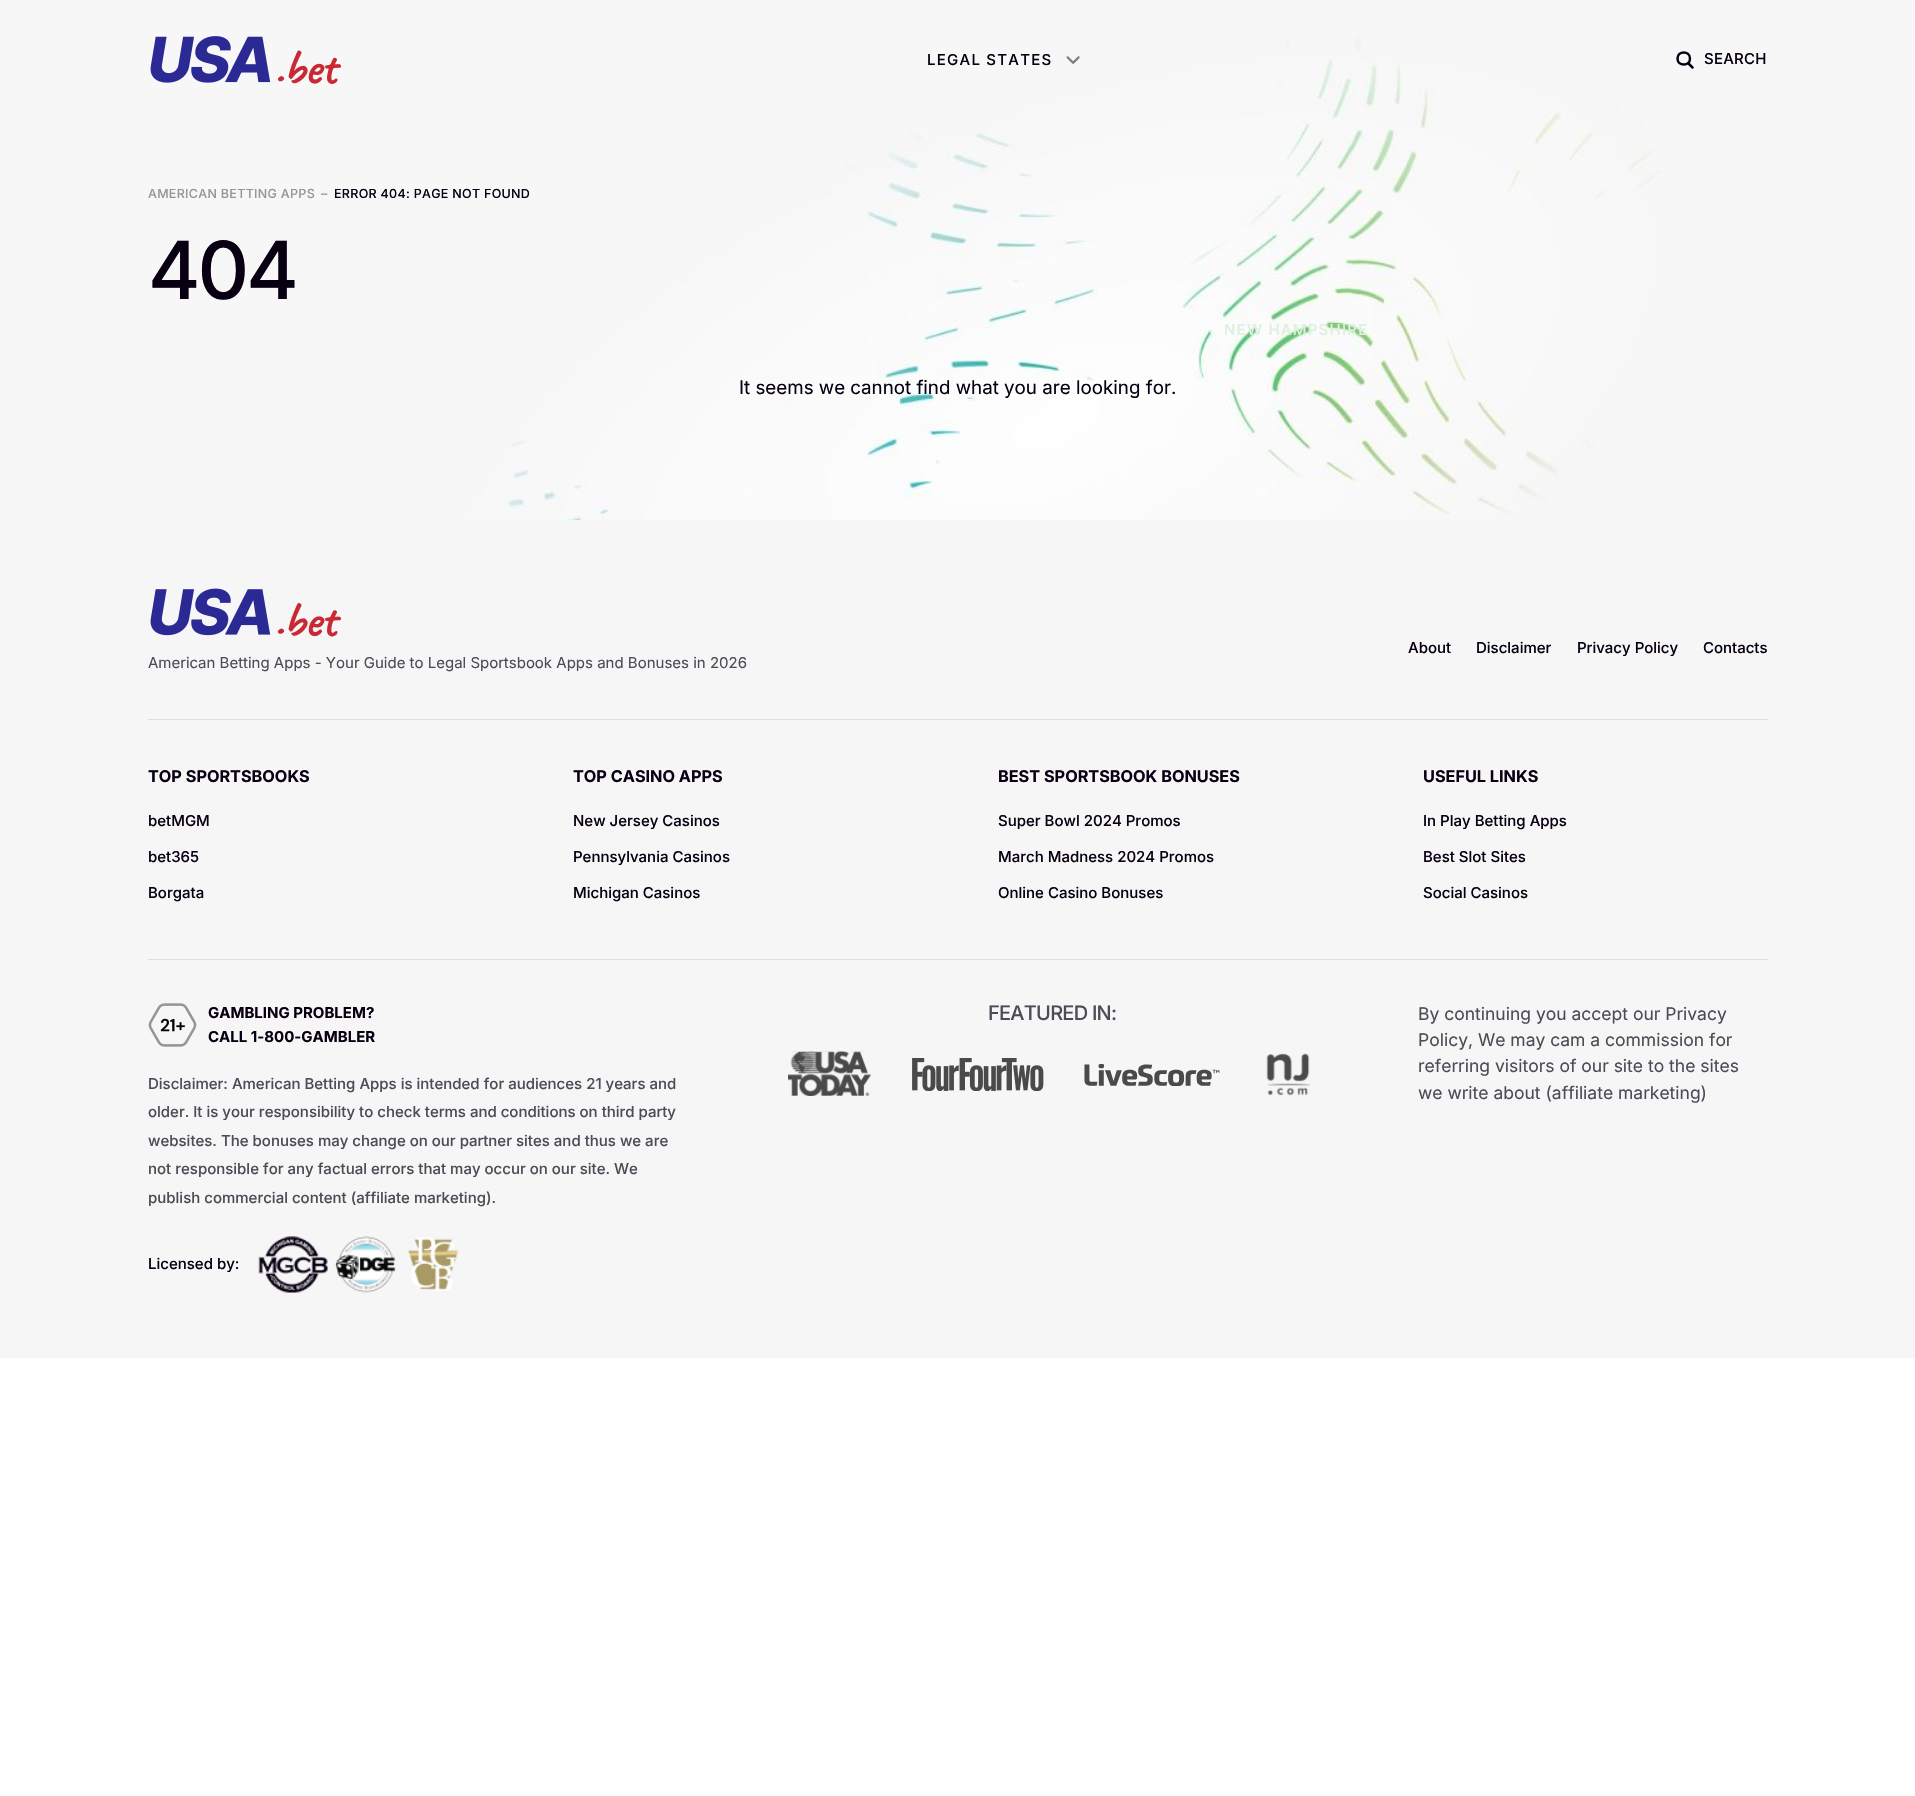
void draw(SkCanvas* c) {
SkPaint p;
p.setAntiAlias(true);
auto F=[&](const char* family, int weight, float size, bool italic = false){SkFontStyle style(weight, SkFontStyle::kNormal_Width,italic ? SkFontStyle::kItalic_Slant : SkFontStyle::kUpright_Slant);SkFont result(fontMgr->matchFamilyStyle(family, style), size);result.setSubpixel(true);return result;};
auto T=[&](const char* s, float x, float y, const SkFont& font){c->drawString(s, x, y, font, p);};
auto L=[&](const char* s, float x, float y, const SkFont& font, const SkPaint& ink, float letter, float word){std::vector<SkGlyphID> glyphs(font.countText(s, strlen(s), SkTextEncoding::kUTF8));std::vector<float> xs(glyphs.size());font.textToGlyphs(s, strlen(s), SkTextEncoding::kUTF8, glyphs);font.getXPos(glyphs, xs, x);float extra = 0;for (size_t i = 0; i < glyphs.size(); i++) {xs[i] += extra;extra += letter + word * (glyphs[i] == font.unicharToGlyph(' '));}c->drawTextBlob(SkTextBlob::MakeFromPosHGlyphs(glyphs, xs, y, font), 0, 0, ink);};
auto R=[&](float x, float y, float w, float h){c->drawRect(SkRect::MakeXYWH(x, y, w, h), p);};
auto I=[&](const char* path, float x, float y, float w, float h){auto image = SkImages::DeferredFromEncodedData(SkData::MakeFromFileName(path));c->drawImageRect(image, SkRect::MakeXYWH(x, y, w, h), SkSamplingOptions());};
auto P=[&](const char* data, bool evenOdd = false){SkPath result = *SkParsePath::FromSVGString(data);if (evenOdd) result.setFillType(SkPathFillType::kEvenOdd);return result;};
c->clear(0xffffffff);
I("1.png",0,0,1915,520);
auto f1 = F("Inter",500,12.5);
p.setColor(0xff97949b);
L("AMERICAN BETTING APPS",148,198,f1,p,.3,0);
L("–",321,198,f1,p,.3,0);
p.setColor(0xff080012);
L("ERROR 404: PAGE NOT FOUND",334,198,f1,p,.3,0);
auto f2 = F("Inter",500,80);
L("404",148,299,f2,p,-3,0);
auto f3 = F("Inter",400,18.75);
T("It seems we cannot find what you are looking for.",739,394,f3);
I("2.png",150,36,192,48);
auto f4 = F("Inter",500,15);
L("LEGAL STATES",927,65,f4,p,1.25,0);
I("3.png",1066,56,14,8);
p.setColor(0xffdef0de);
L("NEW HAMPSHIRE",1224,335,f4,p,1.25,0);
p.setStroke(true);
p.setStrokeWidth(2.5);
p.setStrokeCap(SkPaint::kRound_Cap);
p.setColor(0xff080012);
c->drawPath(P("M1692.5 67.5l-4.5-4.5m2-4.5c0 8-12.5 8-12.5 0c0-8 12.5-8 12.5 0z"),p);
p.setStroke(false);
L("SEARCH",1704,64,f4,p,.25,0);
p.setColor(0xfff6f6f6);
R(0,520,1915,838);
p.setColor(0xff080012);
T("About",1408,653,f4);
T("Disclaimer",1476,653,f4);
T("Privacy Policy",1577,653,f4);
T("Contacts",1703,653,f4);
I("4.png",150,588,192,49);
auto f5 = F("Inter",400,15);
p.setColor(0xff4f4a56);
T("American Betting Apps - Your Guide to Legal Sportsbook Apps and Bonuses in 2026",148,668,f5);
p.setColor(0xffdedede);
R(148,719,1620,1);
R(148,959,1620,1);
auto f6 = F("Inter",700,16.25);
p.setColor(0xff080012);
T("TOP SPORTSBOOKS",148,782,f6);
T("betMGM",148,826,f4);
T("bet365",148,862,f4);
T("Borgata",148,898,f4);
T("TOP CASINO APPS",573,782,f6);
T("New Jersey Casinos",573,826,f4);
T("Pennsylvania Casinos",573,862,f4);
T("Michigan Casinos",573,898,f4);
T("BEST SPORTSBOOK BONUSES",998,782,f6);
T("Super Bowl 2024 Promos",998,826,f4);
T("March Madness 2024 Promos",998,862,f4);
T("Online Casino Bonuses",998,898,f4);
T("USEFUL LINKS",1423,782,f6);
T("In Play Betting Apps",1423,826,f4);
T("Best Slot Sites",1423,862,f4);
T("Social Casinos",1423,898,f4);
I("5.png",148,1003,49,44);
auto f7 = F("Inter",700,15);
T("GAMBLING PROBLEM?",208,1018,f7);
T("CALL 1-800-GAMBLER",208,1042,f7);
p.setColor(0xff4f4a56);
T("Disclaimer: American Betting Apps is intended for audiences 21 years and",148,1089,f4);
T("older. It is your responsibility to check terms and conditions on third party",148,1117,f4);
T("websites. The bonuses may change on our partner sites and thus we are",148,1146,f4);
T("not responsible for any factual errors that may occur on our site. We",148,1174,f4);
T("publish commercial content (affiliate marketing).",148,1203,f4);
p.setColor(0xff080012);
T("Licensed by:",148,1269,f4);
I("6.png",258,1236,70,57);
I("7.png",335,1236,61,57);
I("8.png",408,1237,51,54);
auto f8 = F("Inter",500,20);
p.setColor(0xff4f4a56);
L("FEATURED IN:",988,1020,f8,p,-.75,0);
I("9.png",788,1051,83,45);
I("10.png",912,1058,132,33);
I("11.png",1084,1064,136,22);
I("12.png",1266,1053,45,43);
auto f9 = F("Inter",400,17.5);
T("By continuing you accept our Privacy",1418,1020,f9);
T("Policy, We may cam a commission for",1418,1046,f9);
T("referring visitors of our site to the sites",1418,1072,f9);
T("we write about (affiliate marketing)",1418,1099,f9);
}
